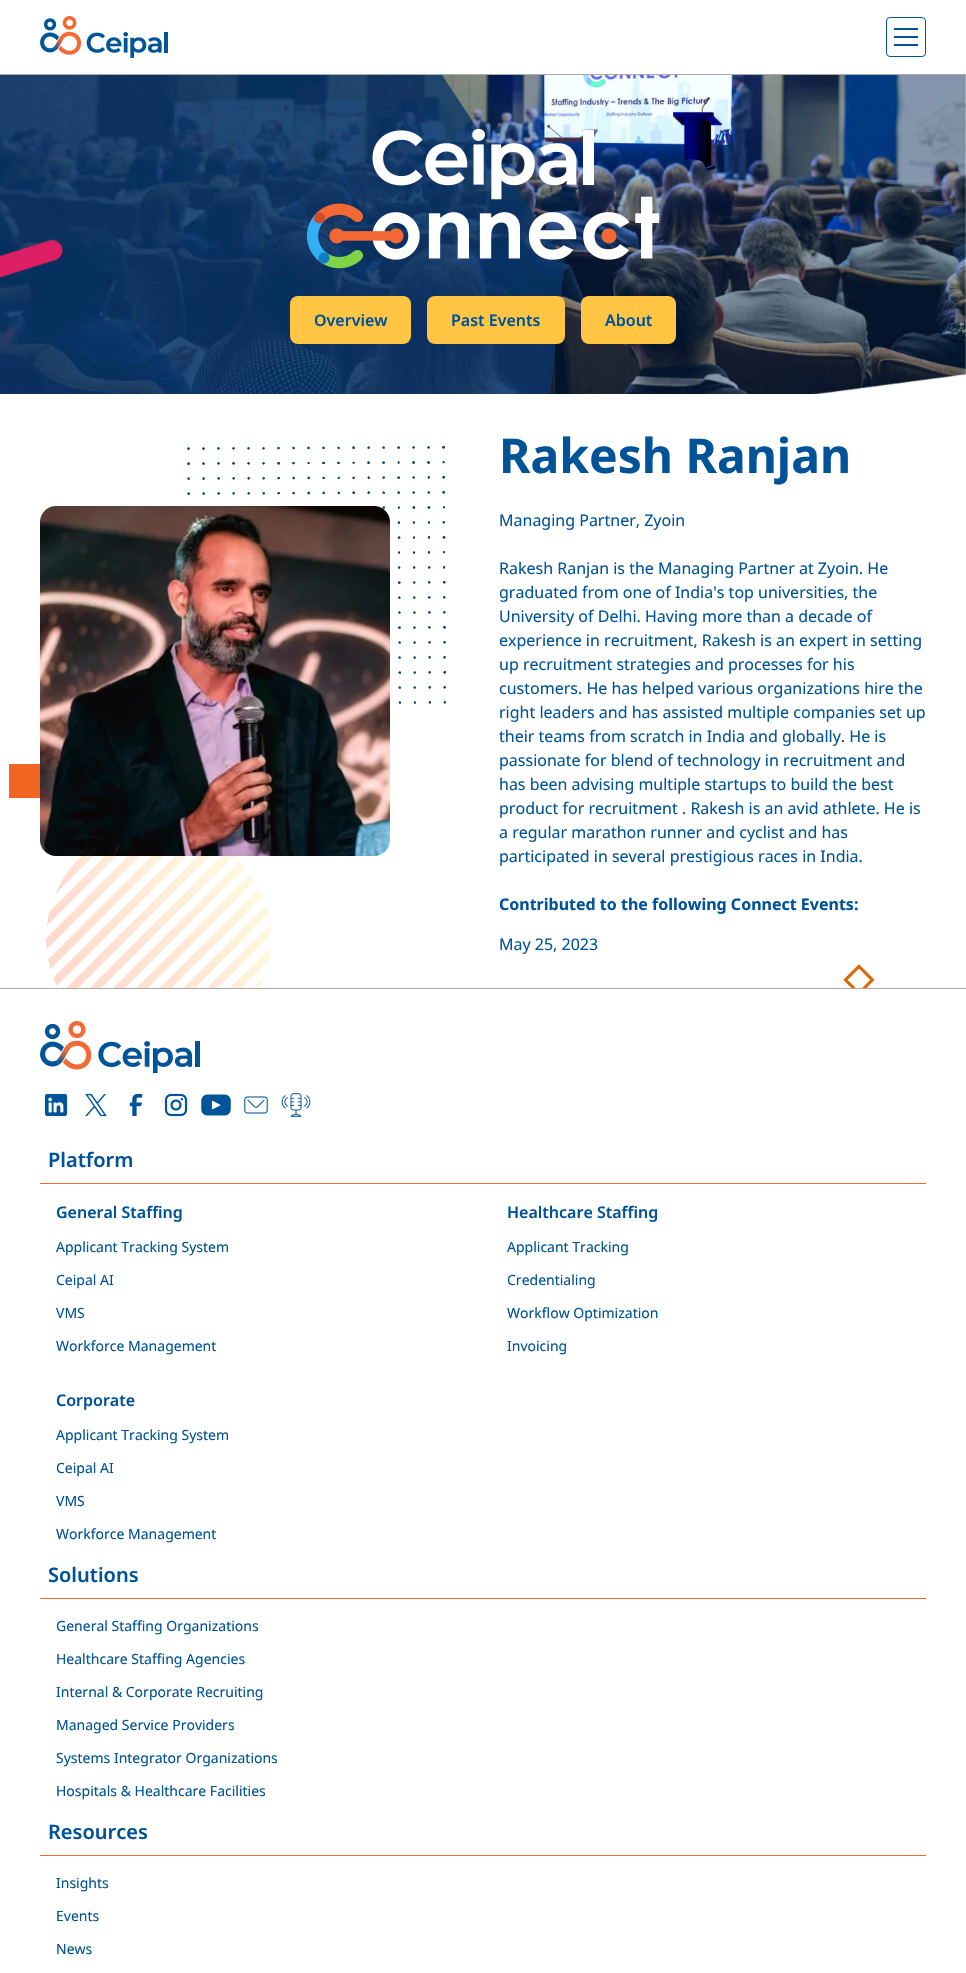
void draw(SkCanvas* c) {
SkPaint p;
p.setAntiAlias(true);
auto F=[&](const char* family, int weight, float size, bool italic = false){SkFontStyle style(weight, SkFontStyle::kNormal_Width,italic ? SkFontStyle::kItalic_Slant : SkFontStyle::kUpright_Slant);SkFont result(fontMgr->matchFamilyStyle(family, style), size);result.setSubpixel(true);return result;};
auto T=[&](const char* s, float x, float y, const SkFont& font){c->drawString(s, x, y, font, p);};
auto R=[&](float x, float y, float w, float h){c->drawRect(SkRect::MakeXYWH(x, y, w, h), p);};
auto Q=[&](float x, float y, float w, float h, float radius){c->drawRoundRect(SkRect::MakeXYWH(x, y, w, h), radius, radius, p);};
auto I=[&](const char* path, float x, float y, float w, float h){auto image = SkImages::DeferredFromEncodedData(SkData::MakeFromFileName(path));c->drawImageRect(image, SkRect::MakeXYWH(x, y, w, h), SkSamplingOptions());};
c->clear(0xffffffff);
p.setColor(0xffaaaaaa);
R(0,74,966,1);
I("1.png",40,16,128,42);
p.setStroke(true);
p.setStrokeWidth(1);
p.setColor(0xff005398);
c->drawRoundRect(SkRect::MakeXYWH(886.5,17.5,39,39),3.5,3.5,p);
p.setStroke(false);
R(894,28,24,2);
R(894,36,24,2);
R(894,44,24,2);
I("2.png",0,75,966,319);
I("3.png",306,128,354,141);
p.setColor(0xffffc543);
Q(290,296,121,48,8);
auto f1 = F("Noto Sans",600,16);
p.setColor(0xff005398);
T("Overview",314,326,f1);
p.setColor(0xffffc543);
Q(427,296,138,48,8);
p.setColor(0xff005398);
T("Past Events",451,326,f1);
p.setColor(0xffffc543);
Q(581,296,95,48,8);
p.setColor(0xff005398);
T("About",605,326,f1);
I("4.png",9,764,866,224);
I("5.png",187,446,259,258);
I("6.png",40,506,350,350);
auto f2 = F("Noto Sans",700,48);
T("Rakesh Ranjan",499,473,f2);
auto f3 = F("Noto Sans",400,16);
T("Managing Partner, Zyoin",499,526,f3);
T("Rakesh Ranjan is the Managing Partner at Zyoin. He",499,574,f3);
T("graduated from one of India's top universities, the",499,598,f3);
T("University of Delhi. Having more than a decade of",499,622,f3);
T("experience in recruitment, Rakesh is an expert in setting",499,646,f3);
T("up recruitment strategies and processes for his",499,670,f3);
T("customers. He has helped various organizations hire the",499,694,f3);
T("right leaders and has assisted multiple companies set up",499,718,f3);
T("their teams from scratch in India and globally. He is",499,742,f3);
T("passionate for blend of technology in recruitment and",499,766,f3);
T("has been advising multiple startups to build the best",499,790,f3);
T("product for recruitment . Rakesh is an avid athlete. He is",499,814,f3);
T("a regular marathon runner and cyclist and has",499,838,f3);
T("participated in several prestigious races in India.",499,862,f3);
auto f4 = F("Noto Sans",700,16);
T("Contributed to the following Connect Events:",499,910,f4);
T("May 25, 2023",499,950,f3);
p.setColor(0xffaaaaaa);
R(0,988,966,1);
I("7.png",40,1021,160,52);
I("8.png",44,1093,24,24);
I("9.png",85,1093,22,24);
I("10.png",129,1093,14,24);
I("11.png",164,1093,24,24);
I("12.png",201,1094,30,22);
I("13.png",244,1096,24,18);
I("14.png",281,1093,30,24);
p.setColor(0xfff46932);
R(40,1183,886,1);
auto f5 = F("Noto Sans",600,20);
p.setColor(0xff005398);
T("Platform",48,1167,f5);
T("General Staffing",56,1218,f1);
auto f6 = F("Noto Sans",400,14);
T("Applicant Tracking System",56,1252,f6);
T("Ceipal AI",56,1285,f6);
T("VMS",56,1318,f6);
T("Workforce Management",56,1351,f6);
T("Healthcare Staffing",507,1218,f1);
T("Applicant Tracking",507,1252,f6);
T("Credentialing",507,1285,f6);
T("Workflow Optimization",507,1318,f6);
T("Invoicing",507,1351,f6);
T("Corporate",56,1406,f1);
T("Applicant Tracking System",56,1440,f6);
T("Ceipal AI",56,1473,f6);
T("VMS",56,1506,f6);
T("Workforce Management",56,1539,f6);
p.setColor(0xfff46932);
R(40,1598,886,1);
p.setColor(0xff005398);
T("Solutions",48,1582,f5);
T("General Staffing Organizations",56,1631,f6);
T("Healthcare Staffing Agencies",56,1664,f6);
T("Internal & Corporate Recruiting",56,1697,f6);
T("Managed Service Providers",56,1730,f6);
T("Systems Integrator Organizations",56,1763,f6);
T("Hospitals & Healthcare Facilities",56,1796,f6);
p.setColor(0xfff46932);
R(40,1855,886,1);
p.setColor(0xff005398);
T("Resources",48,1839,f5);
T("Insights",56,1888,f6);
T("Events",56,1921,f6);
T("News",56,1954,f6);
}
